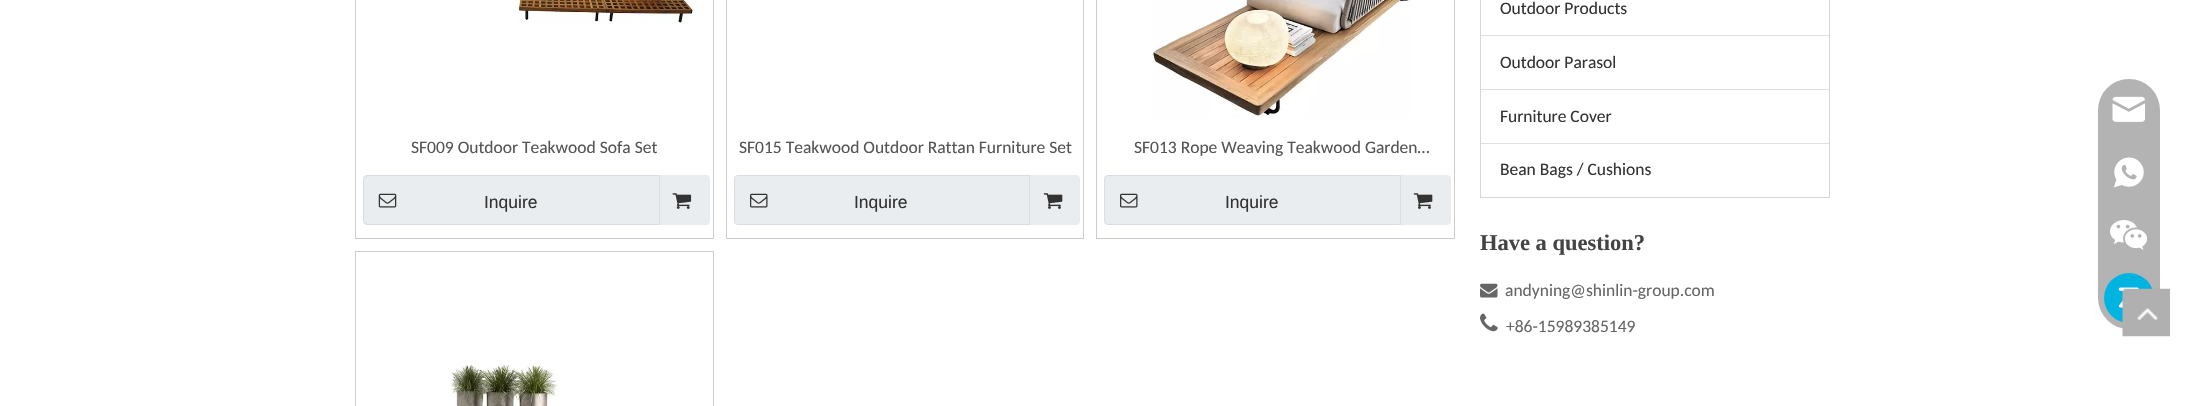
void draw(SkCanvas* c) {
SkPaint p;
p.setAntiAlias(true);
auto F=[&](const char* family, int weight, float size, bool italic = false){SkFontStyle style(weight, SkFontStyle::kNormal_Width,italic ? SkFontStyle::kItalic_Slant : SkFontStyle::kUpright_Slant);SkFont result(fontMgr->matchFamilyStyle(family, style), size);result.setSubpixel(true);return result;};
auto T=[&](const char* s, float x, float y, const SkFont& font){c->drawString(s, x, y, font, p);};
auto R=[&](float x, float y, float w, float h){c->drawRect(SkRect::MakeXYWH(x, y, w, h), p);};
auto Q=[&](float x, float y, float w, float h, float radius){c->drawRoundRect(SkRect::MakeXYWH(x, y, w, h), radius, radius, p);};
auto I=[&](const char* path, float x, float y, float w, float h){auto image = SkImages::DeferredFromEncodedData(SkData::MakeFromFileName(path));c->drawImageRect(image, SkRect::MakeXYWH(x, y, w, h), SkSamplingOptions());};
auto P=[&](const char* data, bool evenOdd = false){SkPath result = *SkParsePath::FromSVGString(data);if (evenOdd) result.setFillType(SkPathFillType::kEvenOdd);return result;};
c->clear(0xffffffff);
p.setStroke(true);
p.setStrokeWidth(1);
p.setColor(0xffcccccc);
c->drawRect(SkRect::MakeXYWH(355.5,-.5,358,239),p);
I("1.png",517,0,177,23);
auto f1 = F("Carlito",400,17.5);
p.setStroke(false);
p.setColor(0xff545454);
T("SF009 Outdoor Teakwood Sofa Set",411,153,f1);
p.setColor(0xffeaedef);
c->drawRoundRect(SkRect::MakeXYWH(363.5,175.5,345,49),3.5,3.5,p);
p.setStroke(true);
p.setColor(0xffd8dde6);
c->drawRoundRect(SkRect::MakeXYWH(363.5,175.5,345,49),3.5,3.5,p);
I("2.png",378,193,19,15);
auto f2 = F("Liberation Sans",400,17.5);
p.setStroke(false);
p.setColor(0xff333333);
T("Inquire",484,208,f2);
p.setColor(0xffeaedef);
c->drawPath(P("M659 175h47c2 0 4 2 4 4v42c0 2-2 4-4 4h-47z"),p);
p.setColor(0xffd8dde6);
R(659,175,1,50);
I("3.png",672,193,20,16);
p.setStroke(true);
p.setColor(0xffcccccc);
c->drawRect(SkRect::MakeXYWH(726.5,-.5,357,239),p);
p.setStroke(false);
p.setColor(0xff545454);
T("SF015 Teakwood Outdoor Rattan Furniture Set",739,153,f1);
p.setColor(0xffeaedef);
c->drawRoundRect(SkRect::MakeXYWH(734.5,175.5,344,49),3.5,3.5,p);
p.setStroke(true);
p.setColor(0xffd8dde6);
c->drawRoundRect(SkRect::MakeXYWH(734.5,175.5,344,49),3.5,3.5,p);
I("4.png",750,193,18,15);
p.setStroke(false);
p.setColor(0xff333333);
T("Inquire",854,208,f2);
p.setColor(0xffeaedef);
c->drawPath(P("M1029 175h47c2 0 4 2 4 4v42c0 2-2 4-4 4h-47z"),p);
p.setColor(0xffd8dde6);
R(1029,175,1,50);
I("5.png",1043,193,20,16);
p.setStroke(true);
p.setColor(0xffcccccc);
c->drawRect(SkRect::MakeXYWH(1096.5,-.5,358,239),p);
I("6.png",1152,0,259,118);
p.setStroke(false);
p.setColor(0xff545454);
T("SF013 Rope Weaving Teakwood Garden…",1134,153,f1);
p.setColor(0xffeaedef);
c->drawRoundRect(SkRect::MakeXYWH(1104.5,175.5,345,49),3.5,3.5,p);
p.setStroke(true);
p.setColor(0xffd8dde6);
c->drawRoundRect(SkRect::MakeXYWH(1104.5,175.5,345,49),3.5,3.5,p);
I("4.png",1120,193,18,15);
p.setStroke(false);
p.setColor(0xff333333);
T("Inquire",1225,208,f2);
p.setColor(0xffeaedef);
c->drawPath(P("M1400 175h47c2 0 4 2 4 4v42c0 2-2 4-4 4h-47z"),p);
p.setColor(0xffd8dde6);
R(1400,175,1,50);
I("5.png",1413,193,20,16);
p.setStroke(true);
p.setColor(0xffcccccc);
c->drawRect(SkRect::MakeXYWH(355.5,251.5,358,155),p);
I("7.png",450,364,108,42);
p.setColor(0xffd6d6d6);
c->drawRect(SkRect::MakeXYWH(1480.5,-.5,349,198),p);
p.setStroke(false);
p.setColor(0xff333333);
T("Outdoor Products",1500,14,f1);
p.setColor(0xffdfdfdf);
R(1481,35,348,1);
p.setColor(0xff333333);
T("Outdoor Parasol",1500,68,f1);
p.setColor(0xffdfdfdf);
R(1481,89,348,1);
p.setColor(0xff333333);
T("Furniture Cover",1500,122,f1);
p.setColor(0xffdfdfdf);
R(1481,143,348,1);
p.setColor(0xff333333);
T("Bean Bags / Cushions",1500,175,f1);
auto f3 = F("Liberation Serif",700,22.5);
p.setColor(0xff444444);
T("Have a question?",1480,250,f3);
I("8.png",1480,283,18,15);
p.setColor(0xff666666);
T("andyning@shinlin-group.com",1505,296,f1);
I("9.png",1480,313,18,19);
T("+86-15989385149",1506,332,f1);
p.setColor(0xffb3b3b3);
Q(2098,79,62,250,31);
I("10.png",2112,96,33,26);
I("11.png",2113,157,31,31);
I("12.png",2110,220,38,30);
p.setColor(0xff00b4e1);
c->drawCircle(2129,298,25,p);
I("13.png",2118,287,21,21);
I("14.png",2122,288,48,49);
}
